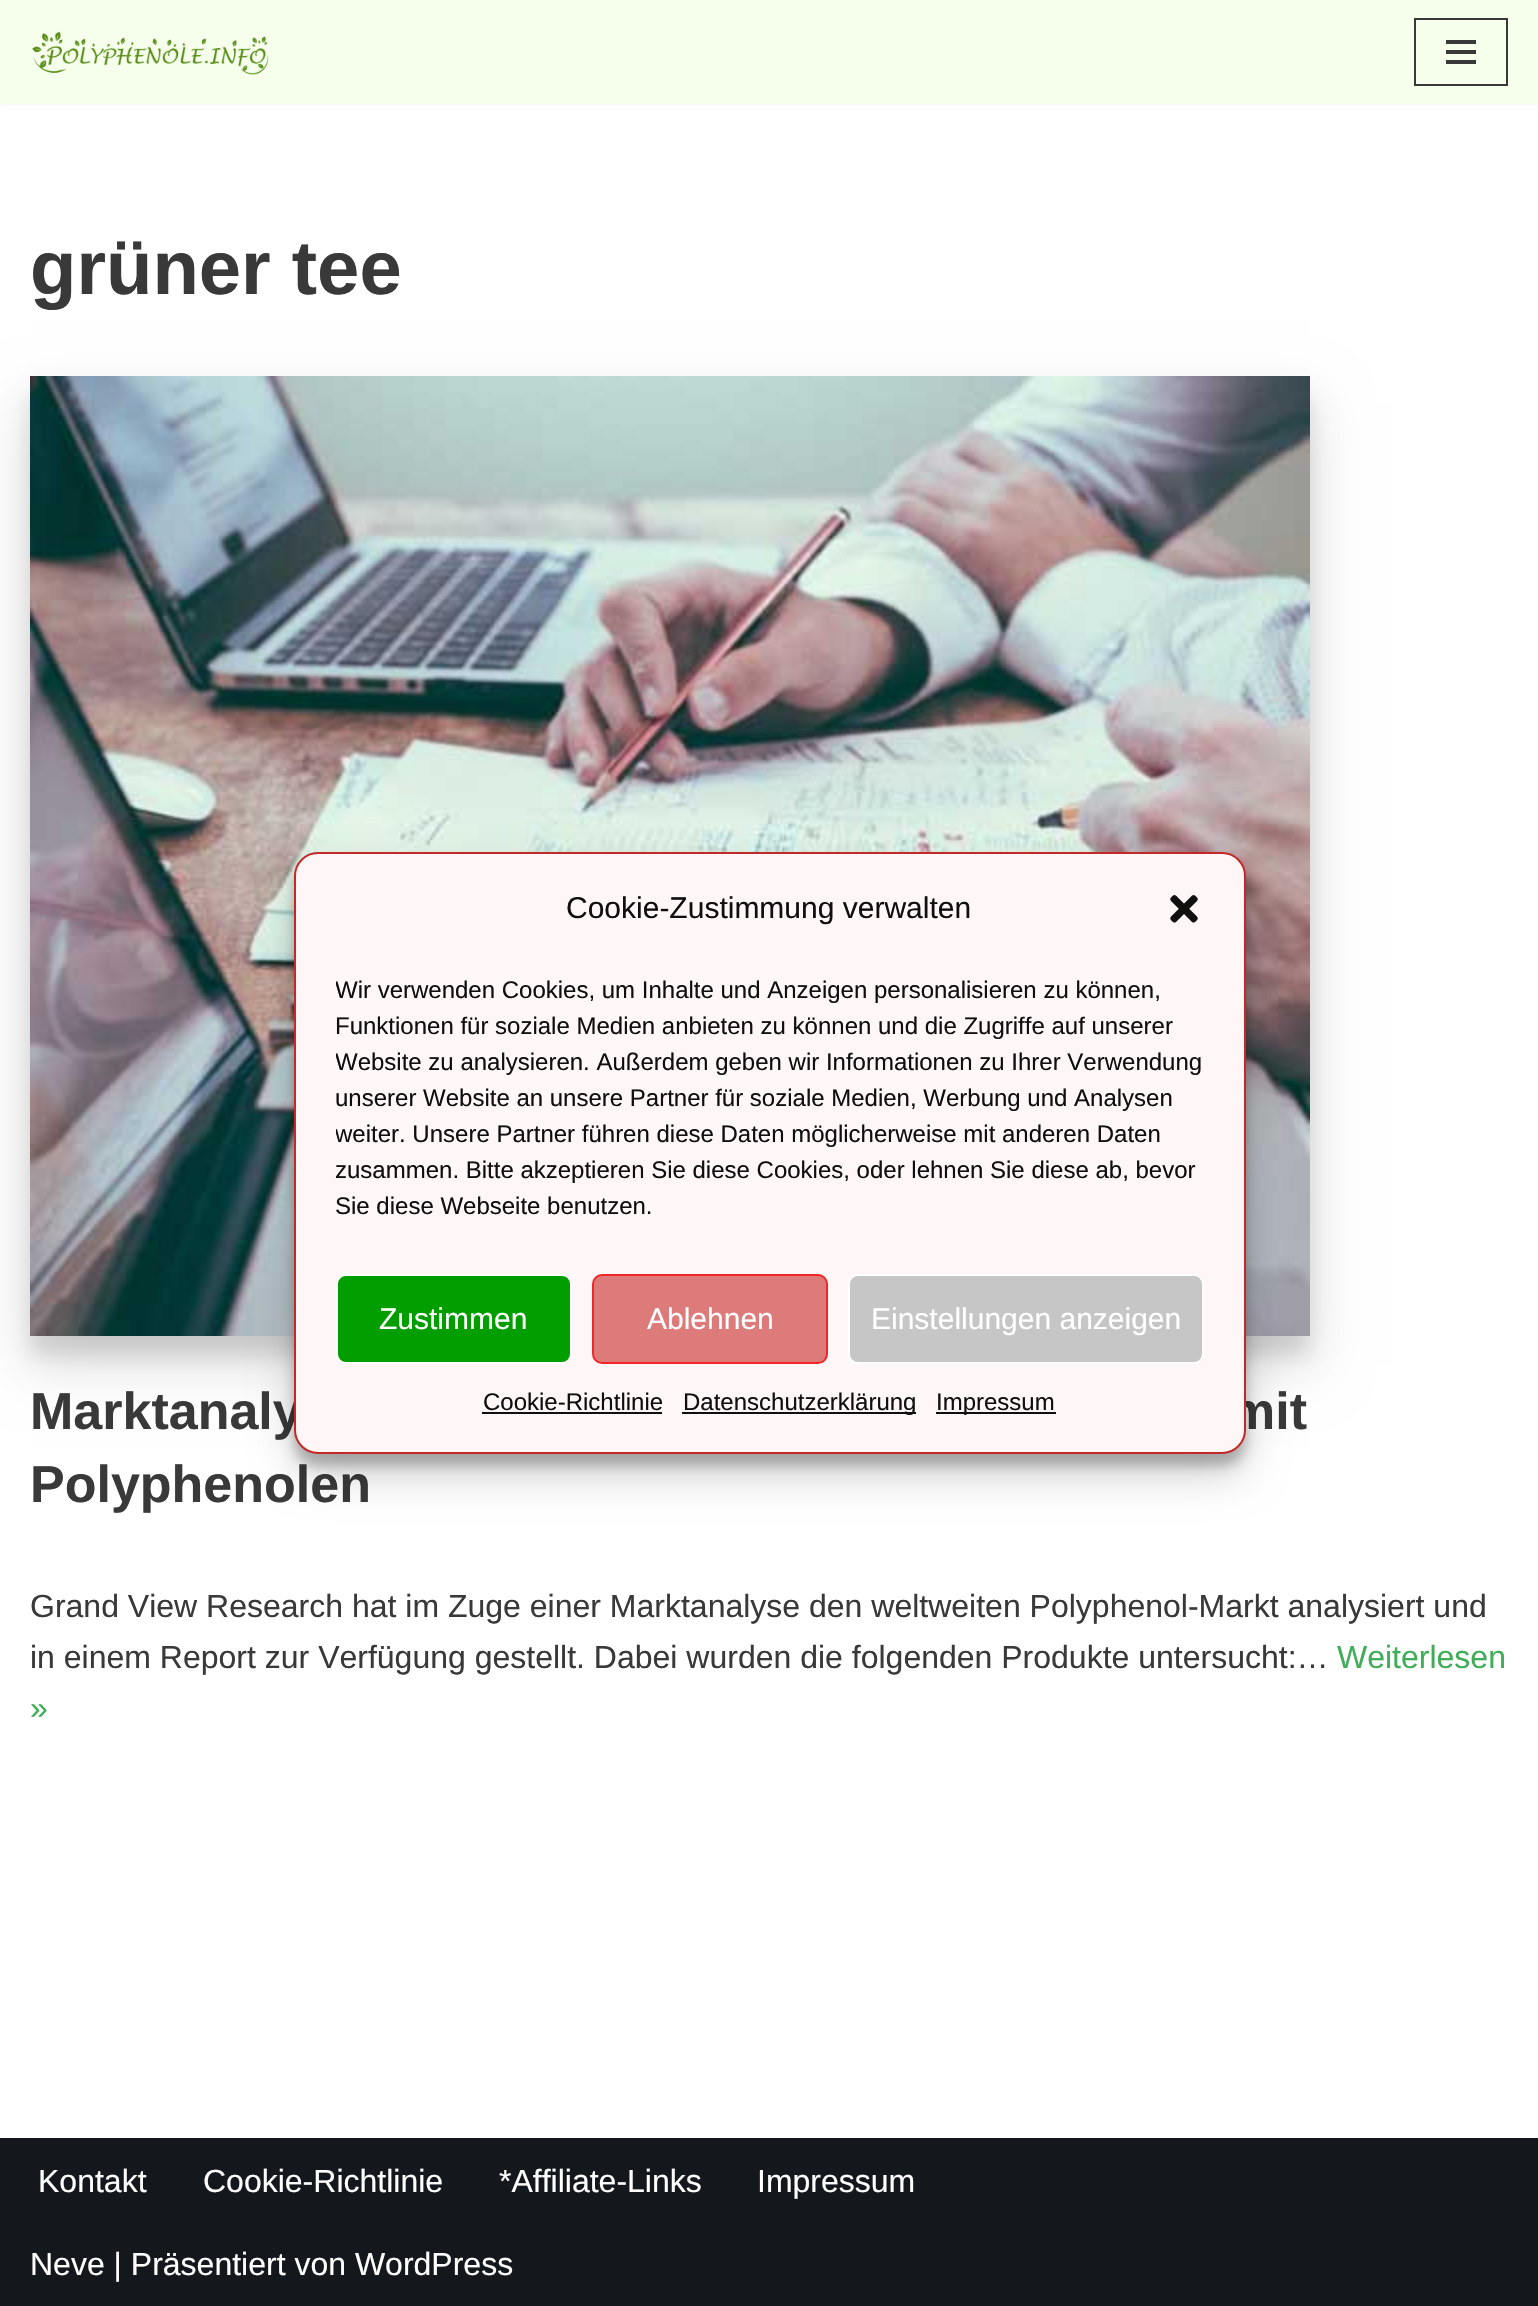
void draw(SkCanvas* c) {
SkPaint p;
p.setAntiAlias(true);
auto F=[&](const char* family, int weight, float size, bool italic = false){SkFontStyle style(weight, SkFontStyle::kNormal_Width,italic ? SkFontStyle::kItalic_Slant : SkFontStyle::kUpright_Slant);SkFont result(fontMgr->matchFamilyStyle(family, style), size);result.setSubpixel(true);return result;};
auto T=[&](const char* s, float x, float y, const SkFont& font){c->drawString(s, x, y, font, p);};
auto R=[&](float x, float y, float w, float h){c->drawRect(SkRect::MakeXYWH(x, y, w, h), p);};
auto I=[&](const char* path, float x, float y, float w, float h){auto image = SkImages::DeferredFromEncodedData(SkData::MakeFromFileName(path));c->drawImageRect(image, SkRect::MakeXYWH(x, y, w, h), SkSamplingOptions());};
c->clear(0xffffffff);
p.setColor(0x1a000000);
p.setMaskFilter(SkMaskFilter::MakeBlur(kNormal_SkBlurStyle, 3));
c->drawRect(SkRect::MakeXYWH(0,-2,1538,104),p);
p.setMaskFilter(nullptr);
p.setColor(0xfff6ffeb);
R(0,0,1538,104);
I("1.png",32,31,237,44);
p.setStroke(true);
p.setStrokeWidth(2);
p.setColor(0xff393939);
c->drawRect(SkRect::MakeXYWH(1415,19,92,66),p);
p.setStroke(false);
R(1446,40,30,4);
R(1446,50,30,4);
R(1446,60,30,4);
auto f1 = F("Liberation Sans",700,76);
T("grüner tee",30,294,f1);
p.setColor(0x1f000000);
p.setMaskFilter(SkMaskFilter::MakeBlur(kNormal_SkBlurStyle, 10));
c->drawRect(SkRect::MakeXYWH(30,396,1280,960),p);
p.setMaskFilter(nullptr);
p.setMaskFilter(SkMaskFilter::MakeBlur(kNormal_SkBlurStyle, 28));
c->drawRect(SkRect::MakeXYWH(30,404,1280,960),p);
p.setMaskFilter(nullptr);
I("2.png",30,376,1280,960);
auto f2 = F("Liberation Sans",700,52);
p.setColor(0xff393939);
T("Marktanaly",30,1429,f2);
T("mit",1229,1429,f2);
T("Polyphenolen",30,1502,f2);
auto f3 = F("Liberation Sans",400,32);
T("Grand View Research hat im Zuge einer Marktanalyse den weltweiten Polyphenol-Markt analysiert und",30,1617,f3);
T("in einem Report zur Verfügung gestellt. Dabei wurden die folgenden Produkte untersucht:…",30,1668,f3);
p.setColor(0xff40ad59);
T("Weiterlesen",1337,1668,f3);
T("»",30,1719,f3);
p.setColor(0xff14171c);
R(0,2138,1538,168);
p.setColor(0xffffffff);
T("Kontakt",38,2192,f3);
T("Cookie-Richtlinie",203,2192,f3);
T("*Affiliate-Links",499,2192,f3);
T("Impressum",757,2192,f3);
T("Neve | Präsentiert von WordPress",30,2275,f3);
p.setColor(0x3b000000);
p.setMaskFilter(SkMaskFilter::MakeBlur(kNormal_SkBlurStyle, 6));
c->drawRoundRect(SkRect::MakeXYWH(294,864,952,602),24,24,p);
p.setMaskFilter(nullptr);
p.setColor(0x30000000);
p.setMaskFilter(SkMaskFilter::MakeBlur(kNormal_SkBlurStyle, 20));
c->drawRoundRect(SkRect::MakeXYWH(294,872,952,602),24,24,p);
p.setMaskFilter(nullptr);
p.setColor(0xfffff7f7);
c->drawRoundRect(SkRect::MakeXYWH(295,853,950,600),23,23,p);
p.setStroke(true);
p.setColor(0xffc42929);
c->drawRoundRect(SkRect::MakeXYWH(295,853,950,600),23,23,p);
auto f4 = F("Liberation Sans",400,30);
p.setStroke(false);
p.setColor(0xff0f0f0f);
T("Cookie-Zustimmung verwalten",566,918,f4);
I("3.png",1170,895,28,28);
c->save();
c->clipRect(SkRect::MakeXYWH(336,972,868,262));
auto f5 = F("Liberation Sans",400,24);
T("Wir verwenden Cookies, um Inhalte und Anzeigen personalisieren zu können,",335,998,f5);
c->restore();
T("Funktionen für soziale Medien anbieten zu können und die Zugriffe auf unserer",335,1034,f5);
c->save();
c->clipRect(SkRect::MakeXYWH(336,972,868,262));
T("Website zu analysieren. Außerdem geben wir Informationen zu Ihrer Verwendung",335,1070,f5);
c->restore();
T("unserer Website an unsere Partner für soziale Medien, Werbung und Analysen",335,1106,f5);
c->save();
c->clipRect(SkRect::MakeXYWH(336,972,868,262));
T("weiter. Unsere Partner führen diese Daten möglicherweise mit anderen Daten",335,1142,f5);
c->restore();
T("zusammen. Bitte akzeptieren Sie diese Cookies, oder lehnen Sie diese ab, bevor",335,1178,f5);
T("Sie diese Webseite benutzen.",335,1214,f5);
p.setColor(0xff029e00);
c->drawRoundRect(SkRect::MakeXYWH(337,1275,234,88),9,9,p);
p.setStroke(true);
p.setColor(0xffffffff);
c->drawRoundRect(SkRect::MakeXYWH(337,1275,234,88),9,9,p);
p.setStroke(false);
T("Zustimmen",379,1329,f4);
p.setColor(0xffdd7a7a);
c->drawRoundRect(SkRect::MakeXYWH(593,1275,234,88),9,9,p);
p.setStroke(true);
p.setColor(0xfff22626);
c->drawRoundRect(SkRect::MakeXYWH(593,1275,234,88),9,9,p);
p.setStroke(false);
p.setColor(0xffffffff);
T("Ablehnen",647,1329,f4);
p.setColor(0xffc6c6c6);
c->drawRoundRect(SkRect::MakeXYWH(849,1275,354,88),9,9,p);
p.setStroke(true);
p.setColor(0xffffffff);
c->drawRoundRect(SkRect::MakeXYWH(849,1275,354,88),9,9,p);
p.setStroke(false);
T("Einstellungen anzeigen",871,1329,f4);
p.setColor(0xff0f0f0f);
T("Cookie-Richtlinie",483,1410,f5);
R(482,1412,180,2);
R(682,1412,234,2);
T("Datenschutzerklärung",683,1410,f5);
R(936,1412,120,2);
T("Impressum",936,1410,f5);
}
